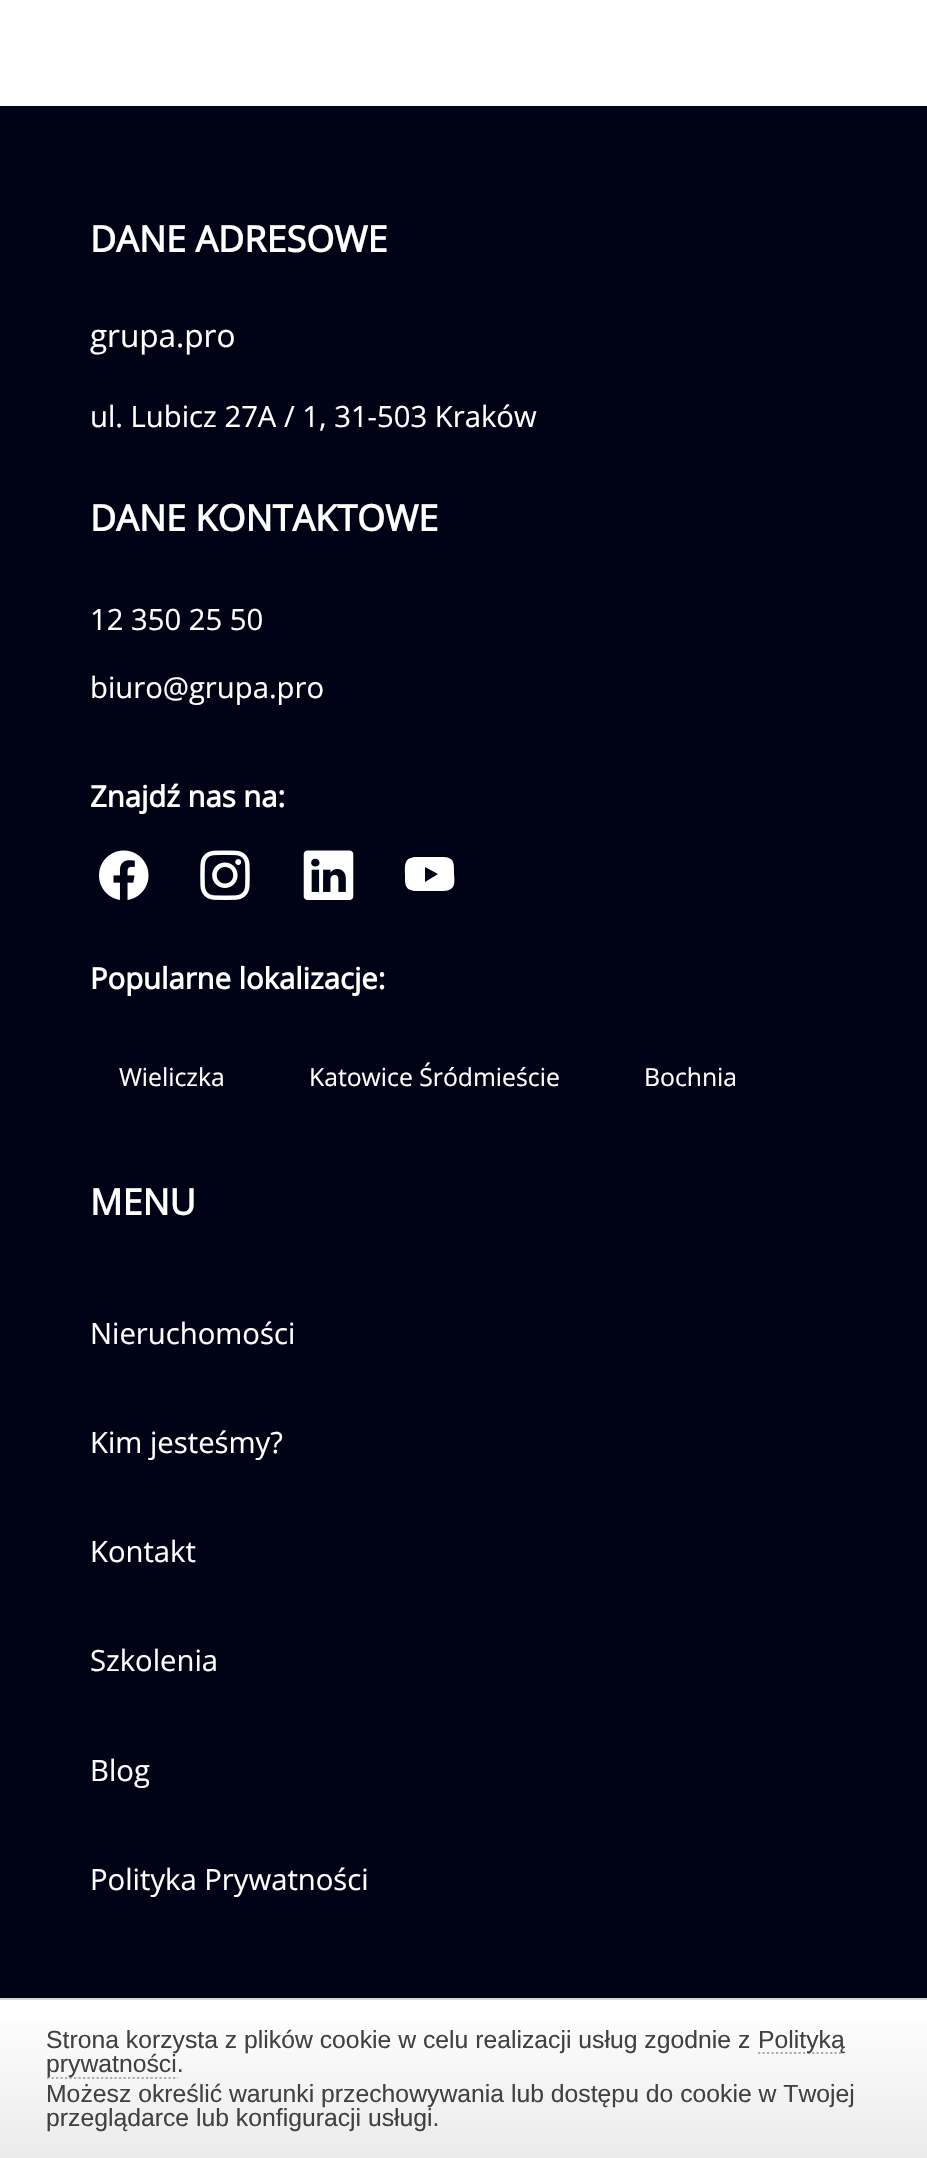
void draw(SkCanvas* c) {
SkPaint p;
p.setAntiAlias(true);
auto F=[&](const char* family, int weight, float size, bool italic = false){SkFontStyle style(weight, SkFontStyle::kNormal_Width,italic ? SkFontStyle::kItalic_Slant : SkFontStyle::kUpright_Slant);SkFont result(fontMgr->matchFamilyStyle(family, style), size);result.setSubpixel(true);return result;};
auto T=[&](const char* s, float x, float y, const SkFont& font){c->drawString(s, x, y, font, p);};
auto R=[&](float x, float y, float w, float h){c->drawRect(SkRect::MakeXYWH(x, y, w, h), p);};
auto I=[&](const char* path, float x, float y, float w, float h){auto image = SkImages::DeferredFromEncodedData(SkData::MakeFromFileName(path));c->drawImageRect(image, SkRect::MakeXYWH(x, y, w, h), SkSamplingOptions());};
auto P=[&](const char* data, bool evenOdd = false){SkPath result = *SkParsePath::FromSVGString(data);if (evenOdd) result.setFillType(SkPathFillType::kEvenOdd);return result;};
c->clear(0xffffffff);
p.setColor(0xff000315);
R(0,106,927,1892);
auto f1 = F("Open Sans",700,36);
p.setColor(0xffffffff);
T("DANE ADRESOWE",90,252,f1);
auto f2 = F("Open Sans",400,31.5);
T("grupa.pro",90,347,f2);
auto f3 = F("Open Sans",400,29.25);
T("ul. Lubicz 27A / 1, 31-503 Kraków",90,427,f3);
T("DANE KONTAKTOWE",90,531,f1);
T("12 350 25 50",90,630,f3);
T("biuro@grupa.pro",90,698,f3);
auto f4 = F("Open Sans",700,29.25);
T("Znajdź nas na:",90,807,f4);
I("1.png",99,850,50,50);
I("2.png",200,850,50,50);
I("3.png",303,850,51,50);
c->drawPath(P("M430 857h14c11 1 10 7 10 17c1 10 1 16-10 17h-14h-15c-11-1-10-8-10-17c0-9-1-16 10-17zm-5 10v15l13-8z"),p);
T("Popularne lokalizacje:",90,989,f4);
auto f5 = F("Open Sans",400,24.75);
T("Wieliczka",119,1086,f5);
T("Katowice Śródmieście",309,1086,f5);
T("Bochnia",644,1086,f5);
T("MENU",90,1215,f1);
T("Nieruchomości",90,1344,f3);
T("Kim jesteśmy?",90,1453,f3);
T("Kontakt",90,1562,f3);
T("Szkolenia",90,1671,f3);
T("Blog",90,1781,f3);
T("Polityka Prywatności",90,1890,f3);
{
const SkColor colors[] = {0xffffffff,0xffebebeb};
const float stops[] = {0,1};
const SkPoint ends[] = {{464,2000}, {464,2158}};
p.setShader(SkGradientShader::MakeLinear(ends, colors, stops, 2, SkTileMode::kClamp));
p.setAlpha(255);
}
R(0,2020,927,138);
p.setShader(nullptr);
p.setColor(0xffd7d7d7);
R(0,1998,927,2);
auto f6 = F("Liberation Sans",400,24.75);
p.setColor(0xff414141);
T("Strona korzysta z plików cookie w celu realizacji usług zgodnie z",46,2048,f6);
p.setStroke(true);
p.setStrokeWidth(2.2);
p.setColor(0xffaeaeae);
p.setPathEffect(SkDashPathEffect::Make({{2.25f,2.25f}}, 0));
c->drawPath(P("M758 2053h86"),p);
p.setPathEffect(nullptr);
p.setStroke(false);
p.setColor(0xff414141);
T("Polityką",758,2048,f6);
p.setStroke(true);
p.setColor(0xffaeaeae);
p.setPathEffect(SkDashPathEffect::Make({{2.25f,2.25f}}, 0));
c->drawPath(P("M47 2078h131"),p);
p.setPathEffect(nullptr);
p.setStroke(false);
p.setColor(0xff414141);
T("prywatności.",46,2072,f6);
T("Możesz określić warunki przechowywania lub dostępu do cookie w Twojej",46,2102,f6);
T("przeglądarce lub konfiguracji usługi.",46,2126,f6);
}
